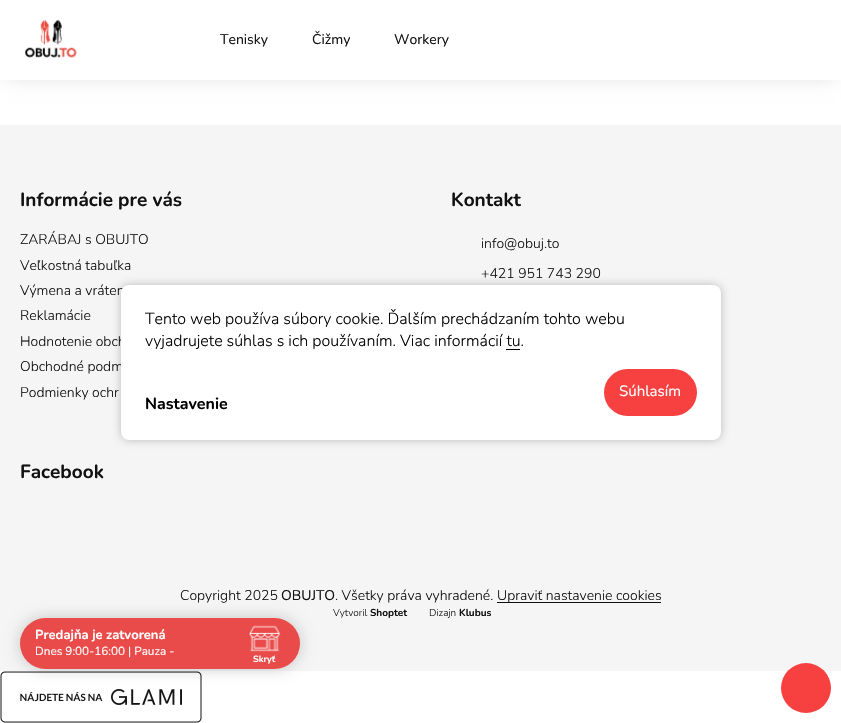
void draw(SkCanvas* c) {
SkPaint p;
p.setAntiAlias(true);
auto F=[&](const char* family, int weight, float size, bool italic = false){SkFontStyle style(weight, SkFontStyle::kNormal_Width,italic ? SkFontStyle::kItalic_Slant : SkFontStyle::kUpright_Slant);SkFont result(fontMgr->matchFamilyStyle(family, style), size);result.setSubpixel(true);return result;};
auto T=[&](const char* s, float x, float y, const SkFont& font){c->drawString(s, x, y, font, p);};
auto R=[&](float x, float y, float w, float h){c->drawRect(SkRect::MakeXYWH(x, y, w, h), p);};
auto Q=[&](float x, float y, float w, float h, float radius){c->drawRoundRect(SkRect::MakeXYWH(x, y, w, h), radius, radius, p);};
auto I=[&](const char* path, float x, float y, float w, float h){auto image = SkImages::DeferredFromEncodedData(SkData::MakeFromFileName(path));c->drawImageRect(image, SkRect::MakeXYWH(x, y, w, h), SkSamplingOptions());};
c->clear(0xffffffff);
p.setColor(0x30000000);
p.setMaskFilter(SkMaskFilter::MakeBlur(kNormal_SkBlurStyle, 10));
c->drawRect(SkRect::MakeXYWH(6,6,829,68),p);
p.setMaskFilter(nullptr);
p.setColor(0xffffffff);
R(0,0,841,80);
I("1.png",24,19,53,39);
auto f1 = F("Nunito",400,14);
p.setColor(0xff111111);
T("Tenisky",220,44,f1);
T("Čižmy",312,44,f1);
T("Workery",394,44,f1);
p.setColor(0xfff5f5f5);
R(0,125,841,546);
auto f2 = F("Nunito",700,19);
p.setColor(0xff111111);
T("Informácie pre vás",20,206,f2);
auto f3 = F("Nunito",300,14);
T("ZARÁBAJ s OBUJTO",20,244,f3);
T("Veľkostná tabuľka",20,270,f3);
T("Výmena a vráten",20,295,f3);
T("Reklamácie",20,320,f3);
T("Hodnotenie obch",20,346,f3);
T("Obchodné podm",20,371,f3);
T("Podmienky ochr",20,397,f3);
T("Kontakt",451,206,f2);
T("info@obuj.to",481,248,f3);
T("+421 951 743 290",481,278,f3);
T("Facebook",20,478,f2);
T("Copyright 2025",180,600,f3);
T("OBUJTO",281,600,f1);
T(". Všetky práva vyhradené.",335,600,f3);
R(497,602,164,1);
T("Upraviť nastavenie cookies",497,600,f3);
auto f4 = F("Nunito",300,10);
T("Vytvoril",333,616,f4);
auto f5 = F("Nunito",700,10);
T("Shoptet",370,616,f5);
T("Dizajn",429,616,f4);
T("Klubus",459,616,f5);
p.setColor(0x40000000);
p.setMaskFilter(SkMaskFilter::MakeBlur(kNormal_SkBlurStyle, 4));
c->drawRoundRect(SkRect::MakeXYWH(121,285,600,155),8,8,p);
p.setMaskFilter(nullptr);
p.setColor(0xffffffff);
Q(121,285,600,155,8);
auto f6 = F("Nunito",300,16);
p.setColor(0xff000000);
T("Tento web používa súbory cookie. Ďalším prechádzaním tohto webu",145,324,f6);
T("vyjadrujete súhlas s ich používaním. Viac informácií tu.",145,346,f6);
R(506,349,14,1);
auto f7 = F("Nunito",700,16);
T("Nastavenie",145,409,f7);
p.setColor(0xfff74040);
Q(604,369,93,47,23.5);
auto f8 = F("Nunito",400,15);
p.setColor(0xffffffff);
T("Súhlasím",619,396,f8);
I("3.png",0,671,202,52);
p.setColor(0x33000000);
p.setMaskFilter(SkMaskFilter::MakeBlur(kNormal_SkBlurStyle, 7.5));
c->drawRoundRect(SkRect::MakeXYWH(20,618,280,51),25.5,25.5,p);
p.setMaskFilter(nullptr);
p.setColor(0xffe94b4b);
Q(20,618,280,51,25.5);
auto f9 = F("Nunito",700,13);
p.setColor(0xffffffff);
T("Predajňa je zatvorená",35,639,f9);
auto f10 = F("Nunito",400,11.75);
T("Dnes 9:00-16:00 | Pauza -",35,655,f10);
I("2.png",249,625,32,27);
auto f11 = F("Nunito",700,9);
T("Skryť",253,662,f11);
p.setColor(0xfff74040);
c->drawCircle(806,688,25,p);
}
